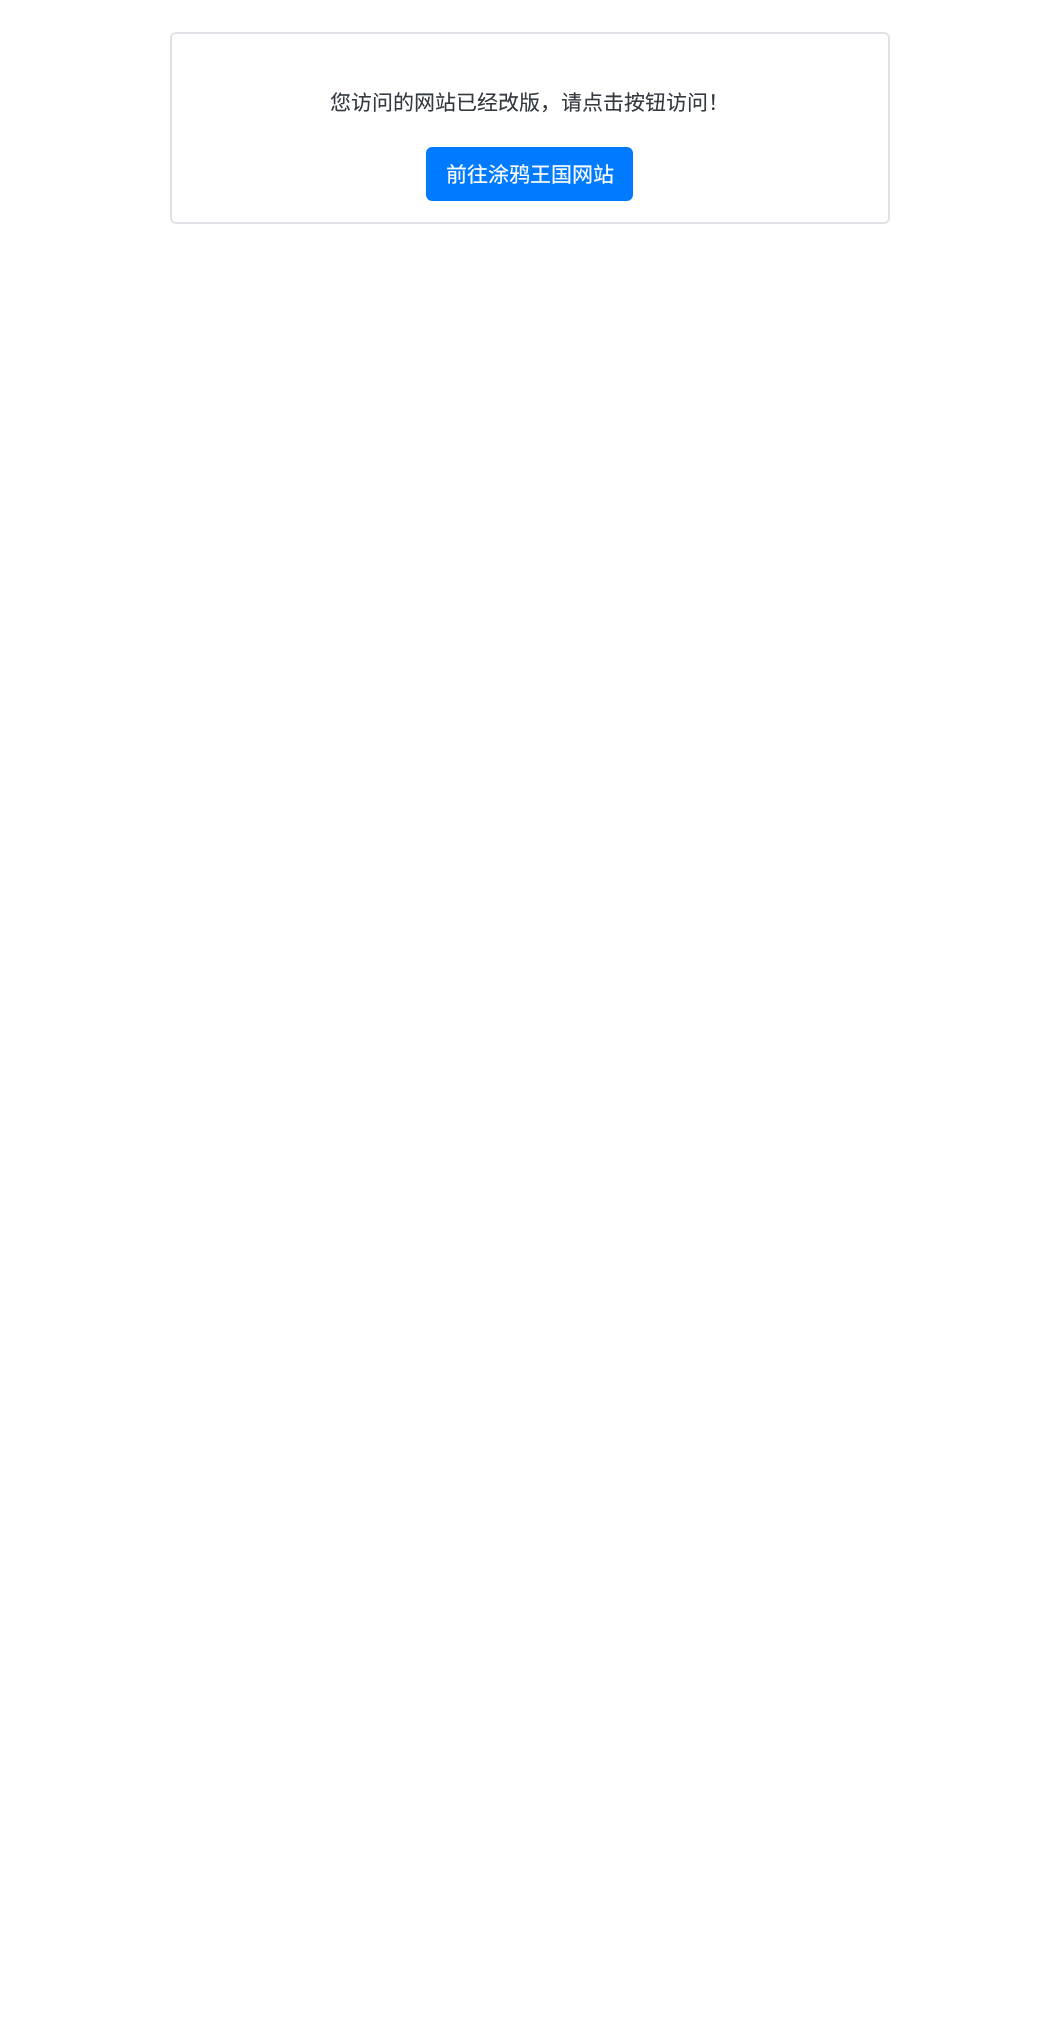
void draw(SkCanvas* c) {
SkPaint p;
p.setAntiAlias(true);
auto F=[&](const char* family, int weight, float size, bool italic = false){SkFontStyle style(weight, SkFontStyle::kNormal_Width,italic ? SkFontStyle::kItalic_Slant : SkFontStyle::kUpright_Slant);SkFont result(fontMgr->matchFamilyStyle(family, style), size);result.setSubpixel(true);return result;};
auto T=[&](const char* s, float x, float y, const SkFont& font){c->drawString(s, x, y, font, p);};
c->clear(0xffffffff);
p.setStroke(true);
p.setStrokeWidth(2);
p.setColor(0xffdee2e6);
c->drawRoundRect(SkRect::MakeXYWH(171,33,718,190),5,5,p);
auto f1 = F("Noto Sans CJK SC",400,21);
p.setStroke(false);
p.setColor(0xff343a40);
T("您访问的网站已经改版，请点击按钮访问！",330,110,f1);
p.setColor(0xff007bff);
c->drawRoundRect(SkRect::MakeXYWH(427,148,205,52),5,5,p);
p.setStroke(true);
c->drawRoundRect(SkRect::MakeXYWH(427,148,205,52),5,5,p);
p.setStroke(false);
p.setColor(0xffffffff);
T("前往涂鸦王国网站",446,182,f1);
}
